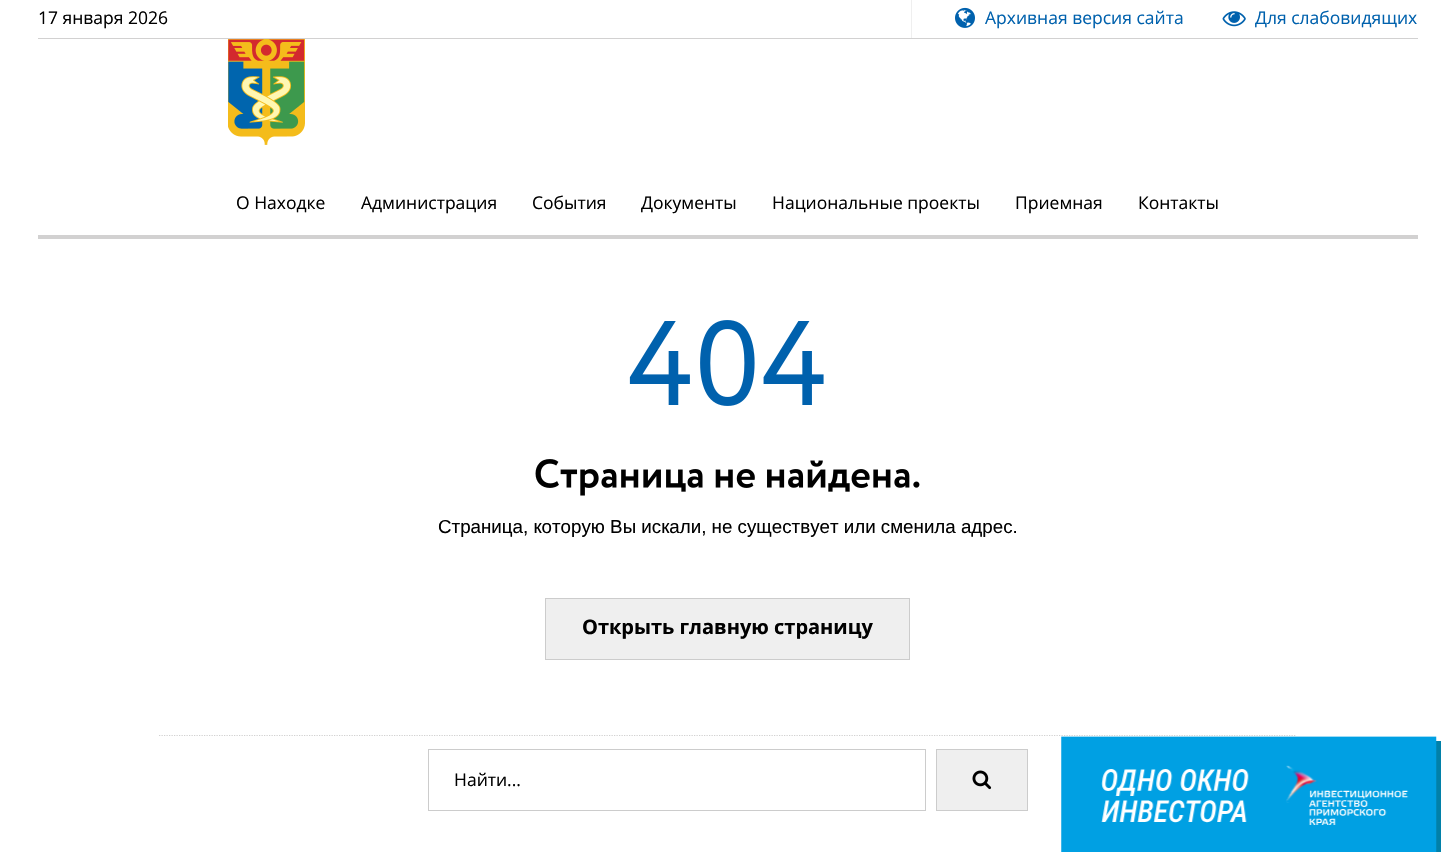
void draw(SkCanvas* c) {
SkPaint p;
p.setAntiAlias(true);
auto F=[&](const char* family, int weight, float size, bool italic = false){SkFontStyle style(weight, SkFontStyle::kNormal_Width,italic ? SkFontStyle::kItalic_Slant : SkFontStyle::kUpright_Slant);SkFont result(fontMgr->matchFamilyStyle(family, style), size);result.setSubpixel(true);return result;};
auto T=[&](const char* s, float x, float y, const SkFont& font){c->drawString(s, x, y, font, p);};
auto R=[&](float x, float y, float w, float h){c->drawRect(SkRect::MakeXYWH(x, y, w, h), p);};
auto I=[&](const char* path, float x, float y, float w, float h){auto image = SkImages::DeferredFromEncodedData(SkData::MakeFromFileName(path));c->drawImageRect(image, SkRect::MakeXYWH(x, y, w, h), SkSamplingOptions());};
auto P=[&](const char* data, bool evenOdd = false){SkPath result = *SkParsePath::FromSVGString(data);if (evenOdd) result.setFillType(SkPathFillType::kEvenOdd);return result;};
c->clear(0xffffffff);
p.setColor(0xffd2d1d1);
R(38,38,1380,1);
auto f1 = F("Open Sans",400,17.5);
p.setColor(0xff000000);
T("17 января 2026",38,24,f1);
p.setColor(0xffefefef);
R(911,0,1,38);
I("1.png",955,7,20,21);
p.setColor(0xff0061ad);
T("Архивная версия сайта",985,24,f1);
I("2.png",1222,11,24,16);
T("Для слабовидящих",1255,24,f1);
I("3.png",228,39,77,106);
p.setColor(0xffd2d1d1);
R(38,235,1380,4);
p.setColor(0xff000000);
T("О Находке",236,209,f1);
T("Администрация",361,209,f1);
T("События",532,209,f1);
T("Документы",641,209,f1);
T("Национальные проекты",772,209,f1);
T("Приемная",1015,209,f1);
T("Контакты",1138,209,f1);
I("4.png",629,320,195,86);
I("5.png",535,459,385,37);
auto f2 = F("Liberation Sans",400,18.75);
T("Страница, которую Вы искали, не существует или сменила адрес.",438,533,f2);
p.setColor(0xffefefef);
c->drawRect(SkRect::MakeXYWH(545.5,598.5,364,61),p);
p.setStroke(true);
p.setStrokeWidth(1);
p.setColor(0xffcccccc);
c->drawRect(SkRect::MakeXYWH(545.5,598.5,364,61),p);
auto f3 = F("Open Sans",700,20);
p.setStroke(false);
p.setColor(0xff000000);
T("Открыть главную страницу",582,634,f3);
p.setStroke(true);
p.setStrokeWidth(1.2);
p.setColor(0xffd2d1d1);
p.setPathEffect(SkDashPathEffect::Make({{1.25f,1.25f}}, 0));
c->drawPath(P("M159 735.5h1137"),p);
p.setPathEffect(nullptr);
p.setStrokeWidth(1);
p.setColor(0xffcccccc);
c->drawRect(SkRect::MakeXYWH(428.5,749.5,497,61),p);
p.setStroke(false);
p.setColor(0xff000000);
T("Найти...",454,786,f1);
p.setColor(0xffefefef);
c->drawRect(SkRect::MakeXYWH(936.5,749.5,91,61),p);
p.setStroke(true);
p.setColor(0xffcccccc);
c->drawRect(SkRect::MakeXYWH(936.5,749.5,91,61),p);
I("6.png",972,770,20,20);
p.setStroke(false);
p.setColor(0xff0180a8);
c->drawPath(P("M1066 852v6h375v-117h-5v111z"),p);
I("7.png",1061,736,376,116);
}
